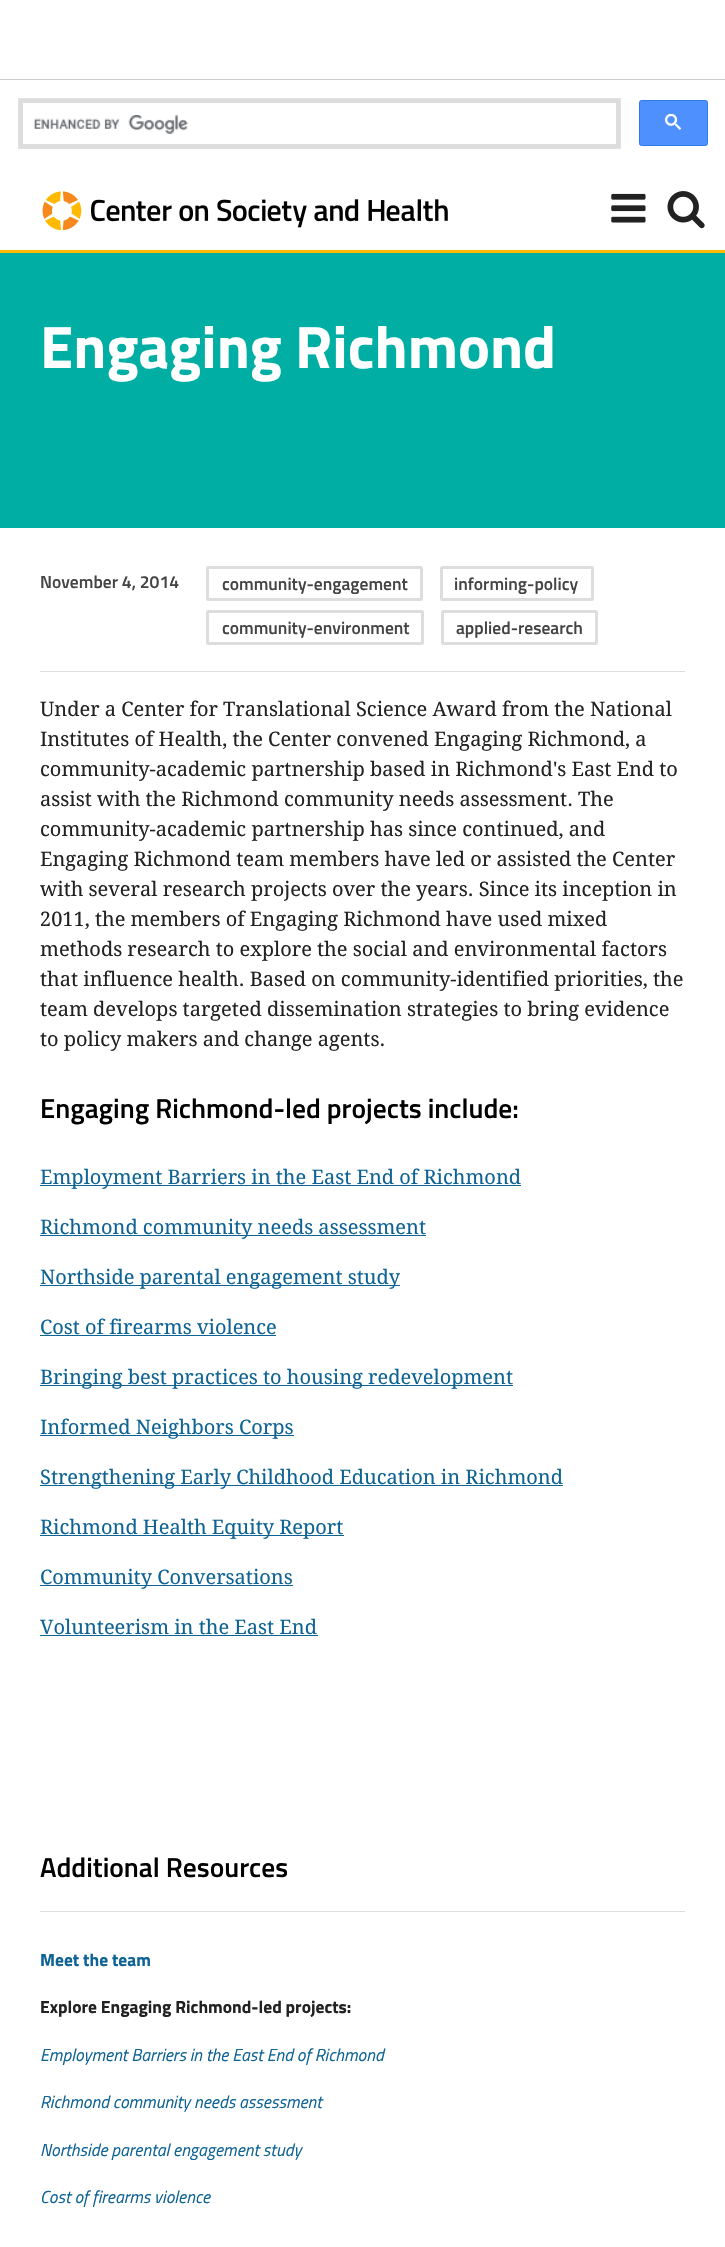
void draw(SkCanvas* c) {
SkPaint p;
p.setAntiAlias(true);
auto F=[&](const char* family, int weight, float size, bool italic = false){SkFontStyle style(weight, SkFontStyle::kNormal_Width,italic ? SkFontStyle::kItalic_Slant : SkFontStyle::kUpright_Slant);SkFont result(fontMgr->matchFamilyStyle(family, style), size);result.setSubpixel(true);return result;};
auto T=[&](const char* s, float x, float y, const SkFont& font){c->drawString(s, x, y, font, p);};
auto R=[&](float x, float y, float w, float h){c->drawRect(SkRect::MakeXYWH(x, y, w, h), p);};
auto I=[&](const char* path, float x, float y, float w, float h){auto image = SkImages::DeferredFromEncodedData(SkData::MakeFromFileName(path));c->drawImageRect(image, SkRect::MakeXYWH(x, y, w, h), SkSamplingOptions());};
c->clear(0xff00aea3);
p.setColor(0xffffffff);
R(0,0,725,79);
p.setColor(0xffcccccc);
R(0,79,725,1);
p.setColor(0xffffffff);
R(0,80,725,170);
p.setStroke(true);
p.setStrokeWidth(1);
p.setColor(0xffdfe1e5);
c->drawRect(SkRect::MakeXYWH(18.5,98.5,602,50),p);
p.setStroke(false);
p.setColor(0xffdddddd);
R(19,99,601,4);
R(616,99,4,49);
R(19,144,601,4);
R(19,99,4,49);
I("1.png",33,115,155,19);
p.setColor(0xff4d90fe);
c->drawRoundRect(SkRect::MakeXYWH(639.5,100.5,68,45),2,2,p);
p.setStroke(true);
p.setColor(0xff3079ed);
c->drawRoundRect(SkRect::MakeXYWH(639.5,100.5,68,45),2,2,p);
I("2.png",665,114,16,16);
p.setStroke(false);
p.setColor(0xffffba00);
R(0,250,725,3);
I("3.png",42,191,406,40);
I("4.png",611,193,35,30);
I("5.png",667,191,38,38);
auto f1 = F("Titillium Web",700,60);
p.setColor(0xffffffff);
T("Engaging Richmond",40,368,f1);
R(0,528,725,1719);
p.setColor(0xffdddddd);
R(40,671,645,1);
auto f2 = F("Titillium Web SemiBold",600,17.5);
p.setColor(0xff444444);
T("November 4, 2014",40,588,f2);
p.setStroke(true);
p.setStrokeWidth(3);
p.setColor(0xffdddddd);
c->drawRoundRect(SkRect::MakeXYWH(207.5,567.5,214,32),1,1,p);
p.setStroke(false);
p.setColor(0xff444444);
T("community-engagement",222,590,f2);
p.setStroke(true);
p.setColor(0xffdddddd);
c->drawRoundRect(SkRect::MakeXYWH(441.5,567.5,151,32),1,1,p);
p.setStroke(false);
p.setColor(0xff444444);
T("informing-policy",454,590,f2);
p.setStroke(true);
p.setColor(0xffdddddd);
c->drawRoundRect(SkRect::MakeXYWH(207.5,611.5,215,32),1,1,p);
p.setStroke(false);
p.setColor(0xff444444);
T("community-environment",222,634,f2);
p.setStroke(true);
p.setColor(0xffdddddd);
c->drawRoundRect(SkRect::MakeXYWH(442.5,611.5,154,32),1,1,p);
p.setStroke(false);
p.setColor(0xff444444);
T("applied-research",456,634,f2);
auto f3 = F("Droid Serif",400,20);
p.setColor(0xff222222);
T("Under a Center for Translational Science Award from the National",40,716,f3);
T("Institutes of Health, the Center convened Engaging Richmond, a",40,746,f3);
T("community-academic partnership based in Richmond's East End to",40,776,f3);
T("assist with the Richmond community needs assessment. The",40,806,f3);
T("community-academic partnership has since continued, and",40,836,f3);
T("Engaging Richmond team members have led or assisted the Center",40,866,f3);
T("with several research projects over the years. Since its inception in",40,896,f3);
T("2011, the members of Engaging Richmond have used mixed",40,926,f3);
T("methods research to explore the social and environmental factors",40,956,f3);
T("that influence health. Based on community-identified priorities, the",40,986,f3);
T("team develops targeted dissemination strategies to bring evidence",40,1016,f3);
T("to policy makers and change agents.",40,1046,f3);
auto f4 = F("Titillium Web SemiBold",600,27.5);
p.setColor(0xff000000);
T("Engaging Richmond-led projects include:",40,1118,f4);
p.setColor(0xff0e6395);
R(40,1185,481,1);
T("Employment Barriers in the East End of Richmond",40,1184,f3);
R(40,1235,386,1);
T("Richmond community needs assessment",40,1234,f3);
R(40,1285,360,1);
T("Northside parental engagement study",40,1284,f3);
T("Cost of firearms violence",40,1334,f3);
R(40,1335,236,1);
R(40,1385,473,1);
T("Bringing best practices to housing redevelopment",40,1384,f3);
R(40,1435,254,1);
T("Informed Neighbors Corps",40,1434,f3);
R(40,1485,523,1);
T("Strengthening Early Childhood Education in Richmond",40,1484,f3);
R(40,1535,304,1);
T("Richmond Health Equity Report",40,1534,f3);
R(40,1585,253,1);
T("Community Conversations",40,1584,f3);
T("Volunteerism in the East End",40,1634,f3);
R(40,1635,278,1);
p.setColor(0xffdddddd);
R(40,1911,645,1);
p.setColor(0xff000000);
T("Additional Resources",40,1877,f4);
auto f5 = F("Titillium Web",700,17.5);
p.setColor(0xff0e6395);
T("Meet the team",40,1966,f5);
p.setColor(0xff222222);
T("Explore Engaging Richmond-led projects:",40,2013,f5);
auto f6 = F("Titillium Web",400,17.5,true);
p.setColor(0xff0e6395);
T("Employment Barriers in the East End of Richmond",40,2061,f6);
T("Richmond community needs assessment",40,2108,f6);
T("Northside parental engagement study",40,2156,f6);
T("Cost of firearms violence",40,2203,f6);
}
